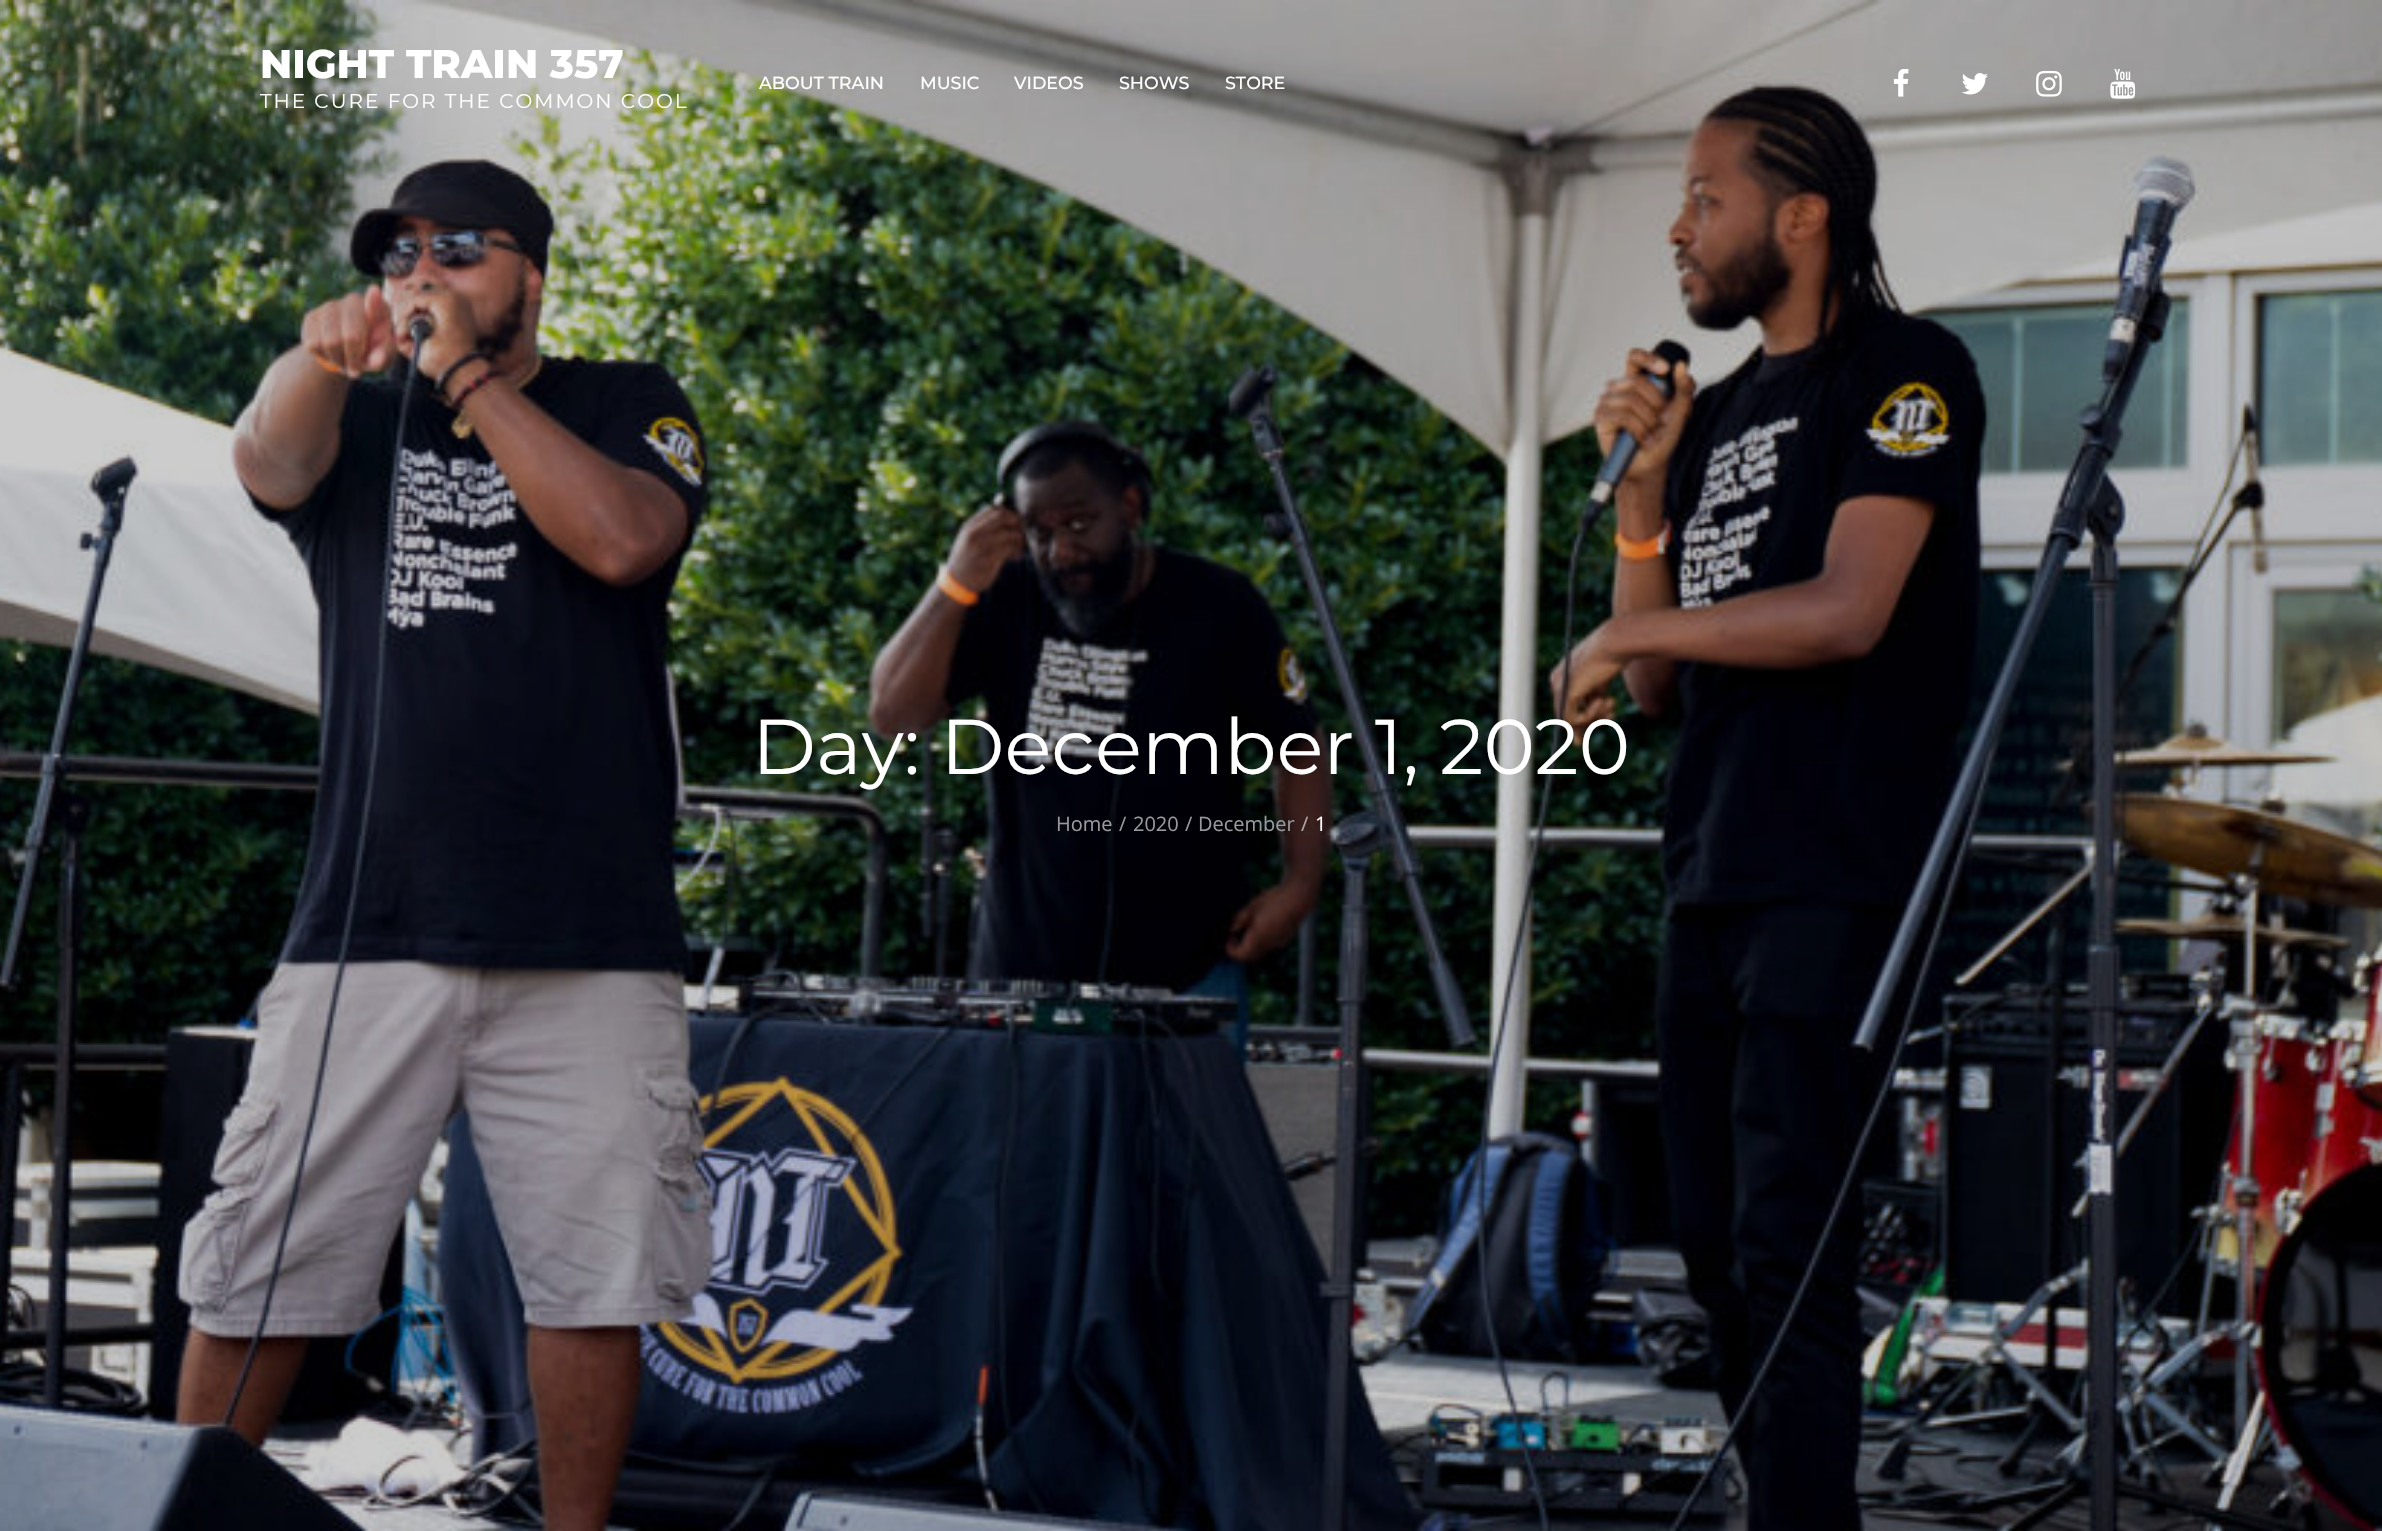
void draw(SkCanvas* c) {
SkPaint p;
p.setAntiAlias(true);
auto F=[&](const char* family, int weight, float size, bool italic = false){SkFontStyle style(weight, SkFontStyle::kNormal_Width,italic ? SkFontStyle::kItalic_Slant : SkFontStyle::kUpright_Slant);SkFont result(fontMgr->matchFamilyStyle(family, style), size);result.setSubpixel(true);return result;};
auto T=[&](const char* s, float x, float y, const SkFont& font){c->drawString(s, x, y, font, p);};
auto L=[&](const char* s, float x, float y, const SkFont& font, const SkPaint& ink, float letter, float word){std::vector<SkGlyphID> glyphs(font.countText(s, strlen(s), SkTextEncoding::kUTF8));std::vector<float> xs(glyphs.size());font.textToGlyphs(s, strlen(s), SkTextEncoding::kUTF8, glyphs);font.getXPos(glyphs, xs, x);float extra = 0;for (size_t i = 0; i < glyphs.size(); i++) {xs[i] += extra;extra += letter + word * (glyphs[i] == font.unicharToGlyph(' '));}c->drawTextBlob(SkTextBlob::MakeFromPosHGlyphs(glyphs, xs, y, font), 0, 0, ink);};
auto I=[&](const char* path, float x, float y, float w, float h){auto image = SkImages::DeferredFromEncodedData(SkData::MakeFromFileName(path));c->drawImageRect(image, SkRect::MakeXYWH(x, y, w, h), SkSamplingOptions());};
c->clear(0xffffffff);
I("5.png",0,0,2382,1531);
auto f1 = F("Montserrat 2",100,40);
p.setColor(0xffffffff);
T("NIGHT TRAIN 357",260,78,f1);
auto f2 = F("Montserrat",100,20);
L("THE CURE FOR THE COMMON COOL",260,108,f2,p,2,0);
auto f3 = F("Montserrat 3",100,17.5);
T("ABOUT TRAIN",759,89,f3);
T("MUSIC",920,89,f3);
T("VIDEOS",1014,89,f3);
T("SHOWS",1119,89,f3);
T("STORE",1225,89,f3);
I("1.png",1893,69,16,28);
I("2.png",1962,73,26,22);
I("3.png",2036,70,26,27);
I("4.png",2110,69,26,30);
auto f4 = F("Montserrat",100,77.5);
T("Day: December 1, 2020",752,774,f4);
auto f5 = F("Open Sans",400,20);
p.setColor(0xff9a9a9e);
T("Home",1056,831,f5);
T("/",1119,831,f5);
T("2020",1133,831,f5);
T("/",1185,831,f5);
T("December",1198,831,f5);
p.setColor(0xffb0a6a5);
T("/",1301,831,f5);
p.setColor(0xffffffff);
T("1",1315,831,f5);
}
